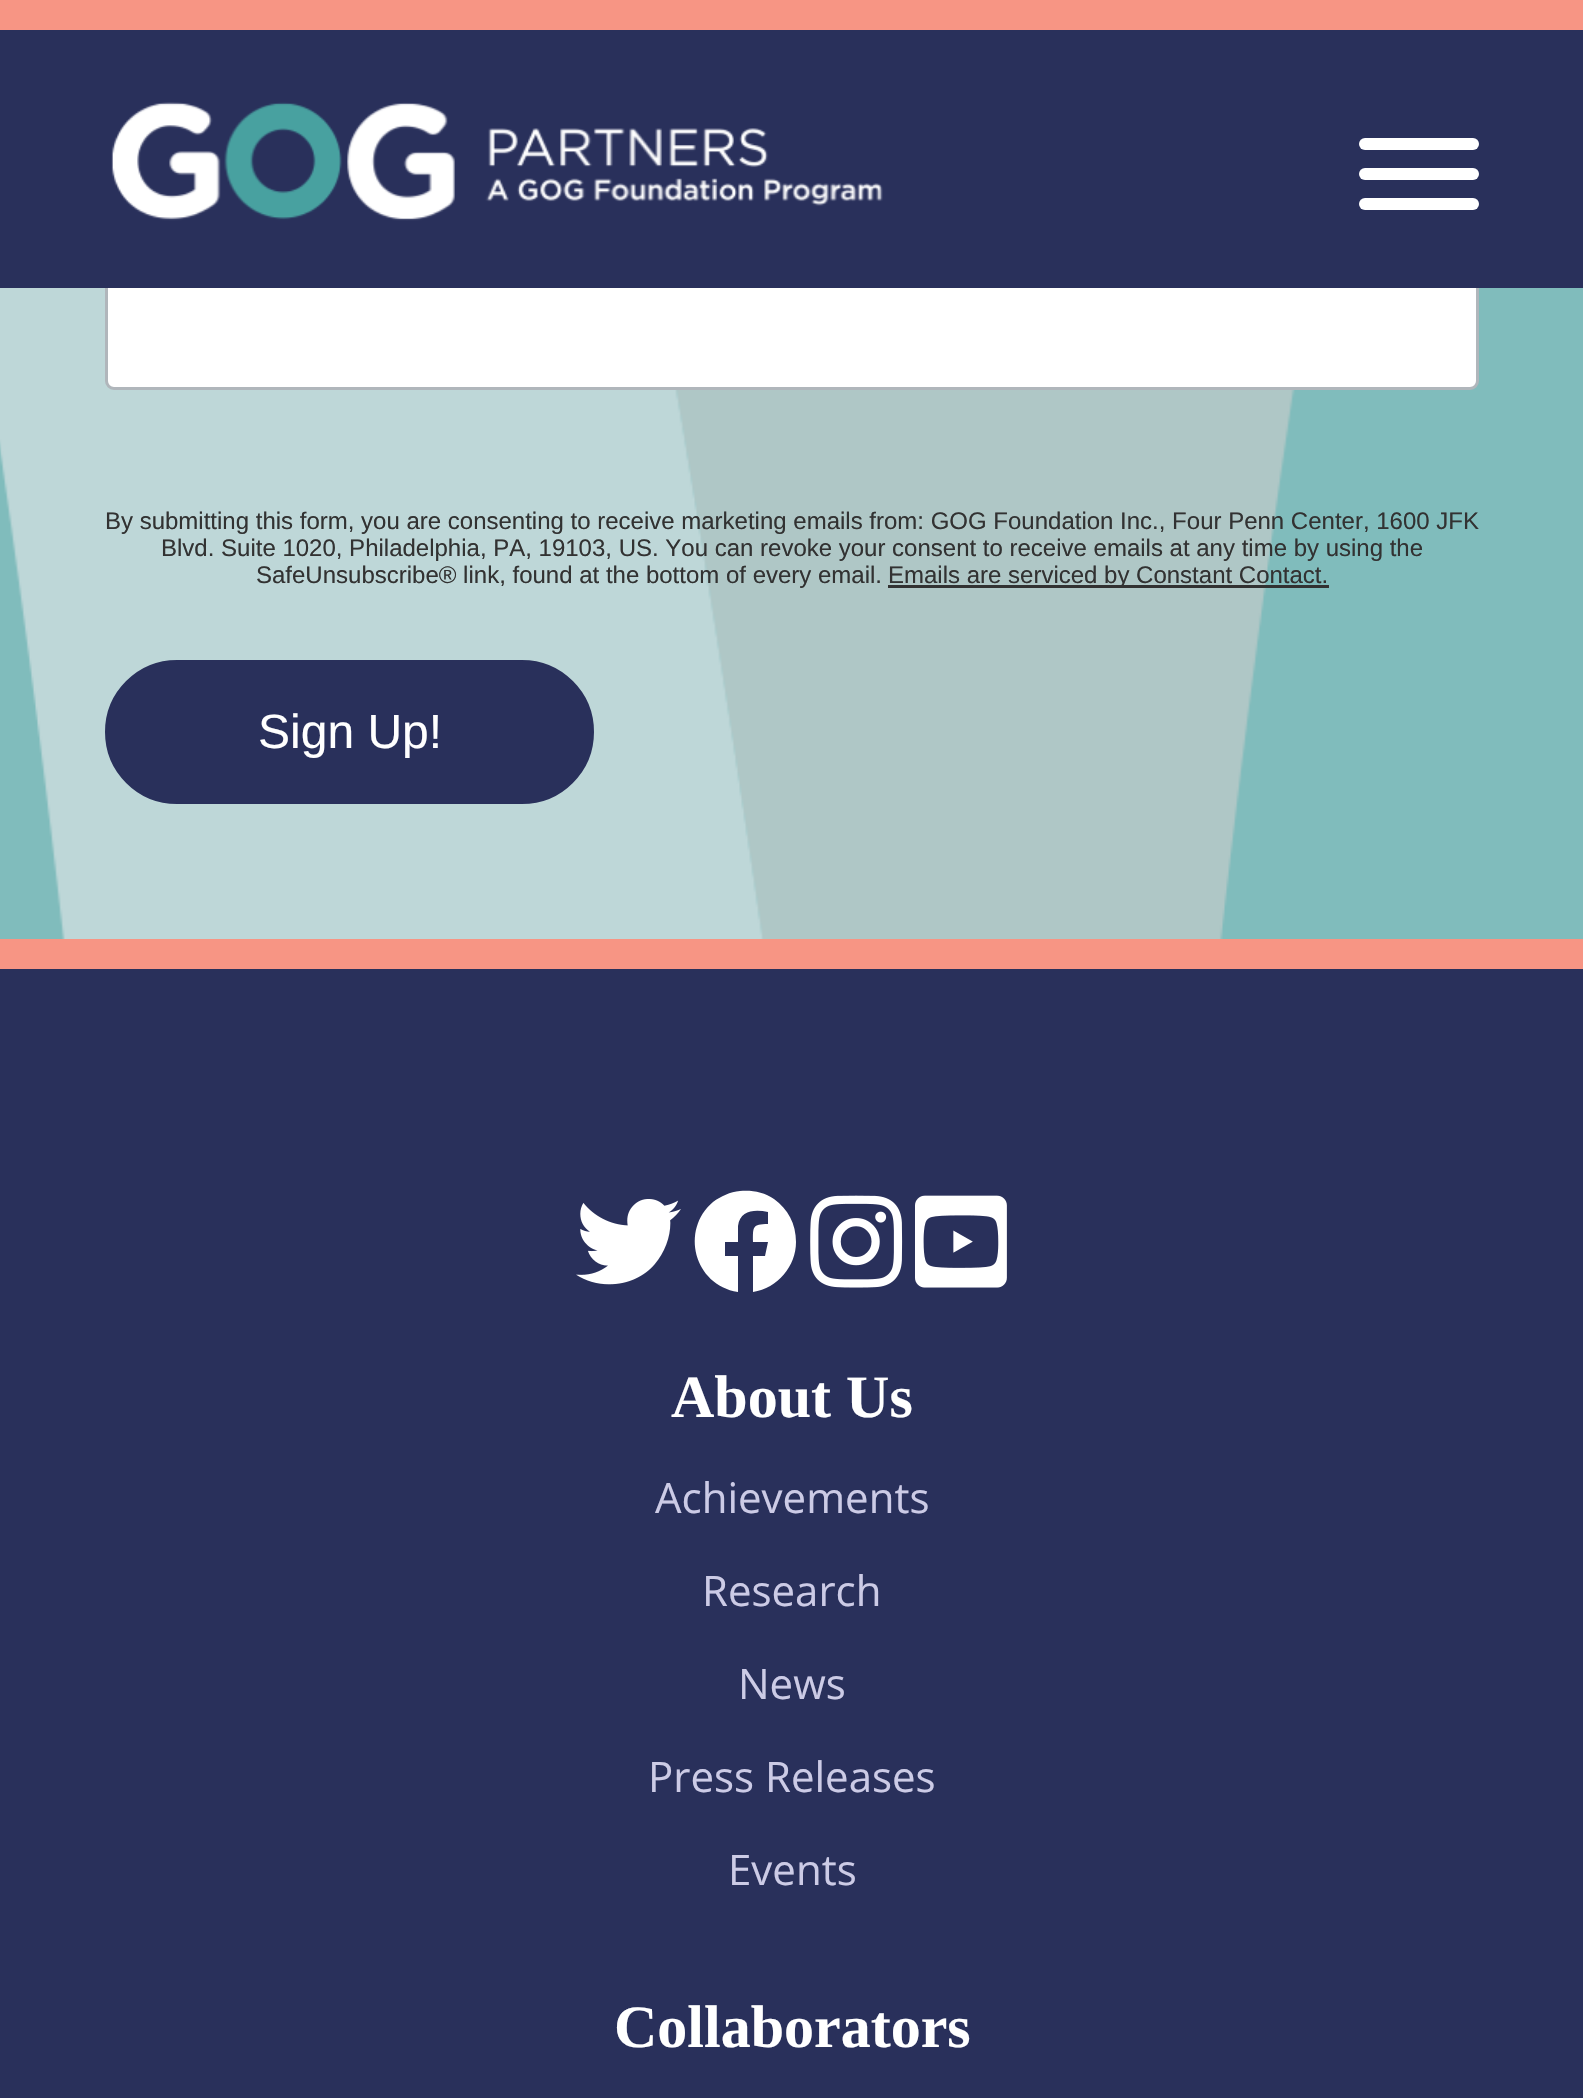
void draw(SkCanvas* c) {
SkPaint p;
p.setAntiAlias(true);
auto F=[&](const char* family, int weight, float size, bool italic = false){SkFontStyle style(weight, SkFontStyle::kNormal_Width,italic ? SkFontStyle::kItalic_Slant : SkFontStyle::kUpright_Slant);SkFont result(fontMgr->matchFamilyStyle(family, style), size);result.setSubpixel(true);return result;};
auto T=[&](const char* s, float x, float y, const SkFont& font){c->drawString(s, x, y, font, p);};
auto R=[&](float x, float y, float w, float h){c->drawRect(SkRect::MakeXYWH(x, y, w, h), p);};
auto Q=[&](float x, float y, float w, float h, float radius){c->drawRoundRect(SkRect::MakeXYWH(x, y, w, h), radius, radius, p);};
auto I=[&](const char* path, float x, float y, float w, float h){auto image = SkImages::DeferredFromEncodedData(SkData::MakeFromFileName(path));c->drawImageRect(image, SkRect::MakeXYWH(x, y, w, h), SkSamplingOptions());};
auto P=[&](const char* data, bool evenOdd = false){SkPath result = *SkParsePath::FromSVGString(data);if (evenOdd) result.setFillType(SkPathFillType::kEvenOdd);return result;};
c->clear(0xff80bcbc);
I("2.png",0,288,1360,651);
p.setColor(0xffffffff);
c->drawRoundRect(SkRect::MakeXYWH(106.5,253.5,1371,135),7.5,7.5,p);
p.setStroke(true);
p.setStrokeWidth(3);
p.setColor(0xffb0b6bb);
c->drawRoundRect(SkRect::MakeXYWH(106.5,253.5,1371,135),7.5,7.5,p);
p.setStroke(false);
p.setColor(0xff29305b);
R(0,30,1583,258);
p.setColor(0xfff79584);
R(0,0,1583,30);
I("1.png",111,102,772,119);
p.setColor(0xffffffff);
Q(1359,168,120,12,6);
Q(1359,138,120,12,6);
Q(1359,198,120,12,6);
auto f1 = F("Liberation Sans",400,24);
p.setColor(0xff323232);
T("By submitting this form, you are consenting to receive marketing emails from: GOG Foundation Inc., Four Penn Center, 1600 JFK",105,529,f1);
T("Blvd. Suite 1020, Philadelphia, PA, 19103, US. You can revoke your consent to receive emails at any time by using the",161,556,f1);
T("SafeUnsubscribe® link, found at the bottom of every email.",256,583,f1);
R(888,585,441,3);
T("Emails are serviced by Constant Contact.",888,583,f1);
p.setColor(0xff29305b);
c->drawRoundRect(SkRect::MakeXYWH(106.5,661.5,486,141),70.5,70.5,p);
p.setStroke(true);
c->drawRoundRect(SkRect::MakeXYWH(106.5,661.5,486,141),70.5,70.5,p);
auto f2 = F("Liberation Sans",400,48);
p.setStroke(false);
p.setColor(0xffffffff);
T("Sign Up!",258,748,f2);
p.setColor(0xff29305b);
R(0,969,1583,1129);
p.setColor(0xfff79584);
R(0,939,1583,30);
I("3.png",576,1199,105,86);
p.setColor(0xffffffff);
c->drawPath(P("M796 1242c0 24-18 46-43 50v-36h12l3-14h-15c0-15-1-18 15-18v-12c-13-3-28-2-30 14v16h-13v14h13v36c-44-7-58-62-25-90c8-6 17-10 27-11c12-1 24 1 34 8c14 10 22 25 22 43z"),p);
I("4.png",810,1195,93,93);
I("5.png",915,1195,92,93);
auto f3 = F("Liberation Serif",700,60);
T("About Us",671,1417,f3);
auto f4 = F("Open Sans",400,42);
p.setColor(0xffcccbe6);
T("Achievements",655,1513,f4);
T("Research",702,1606,f4);
T("News",738,1699,f4);
T("Press Releases",648,1792,f4);
T("Events",728,1885,f4);
p.setColor(0xffffffff);
T("Collaborators",614,2047,f3);
}
